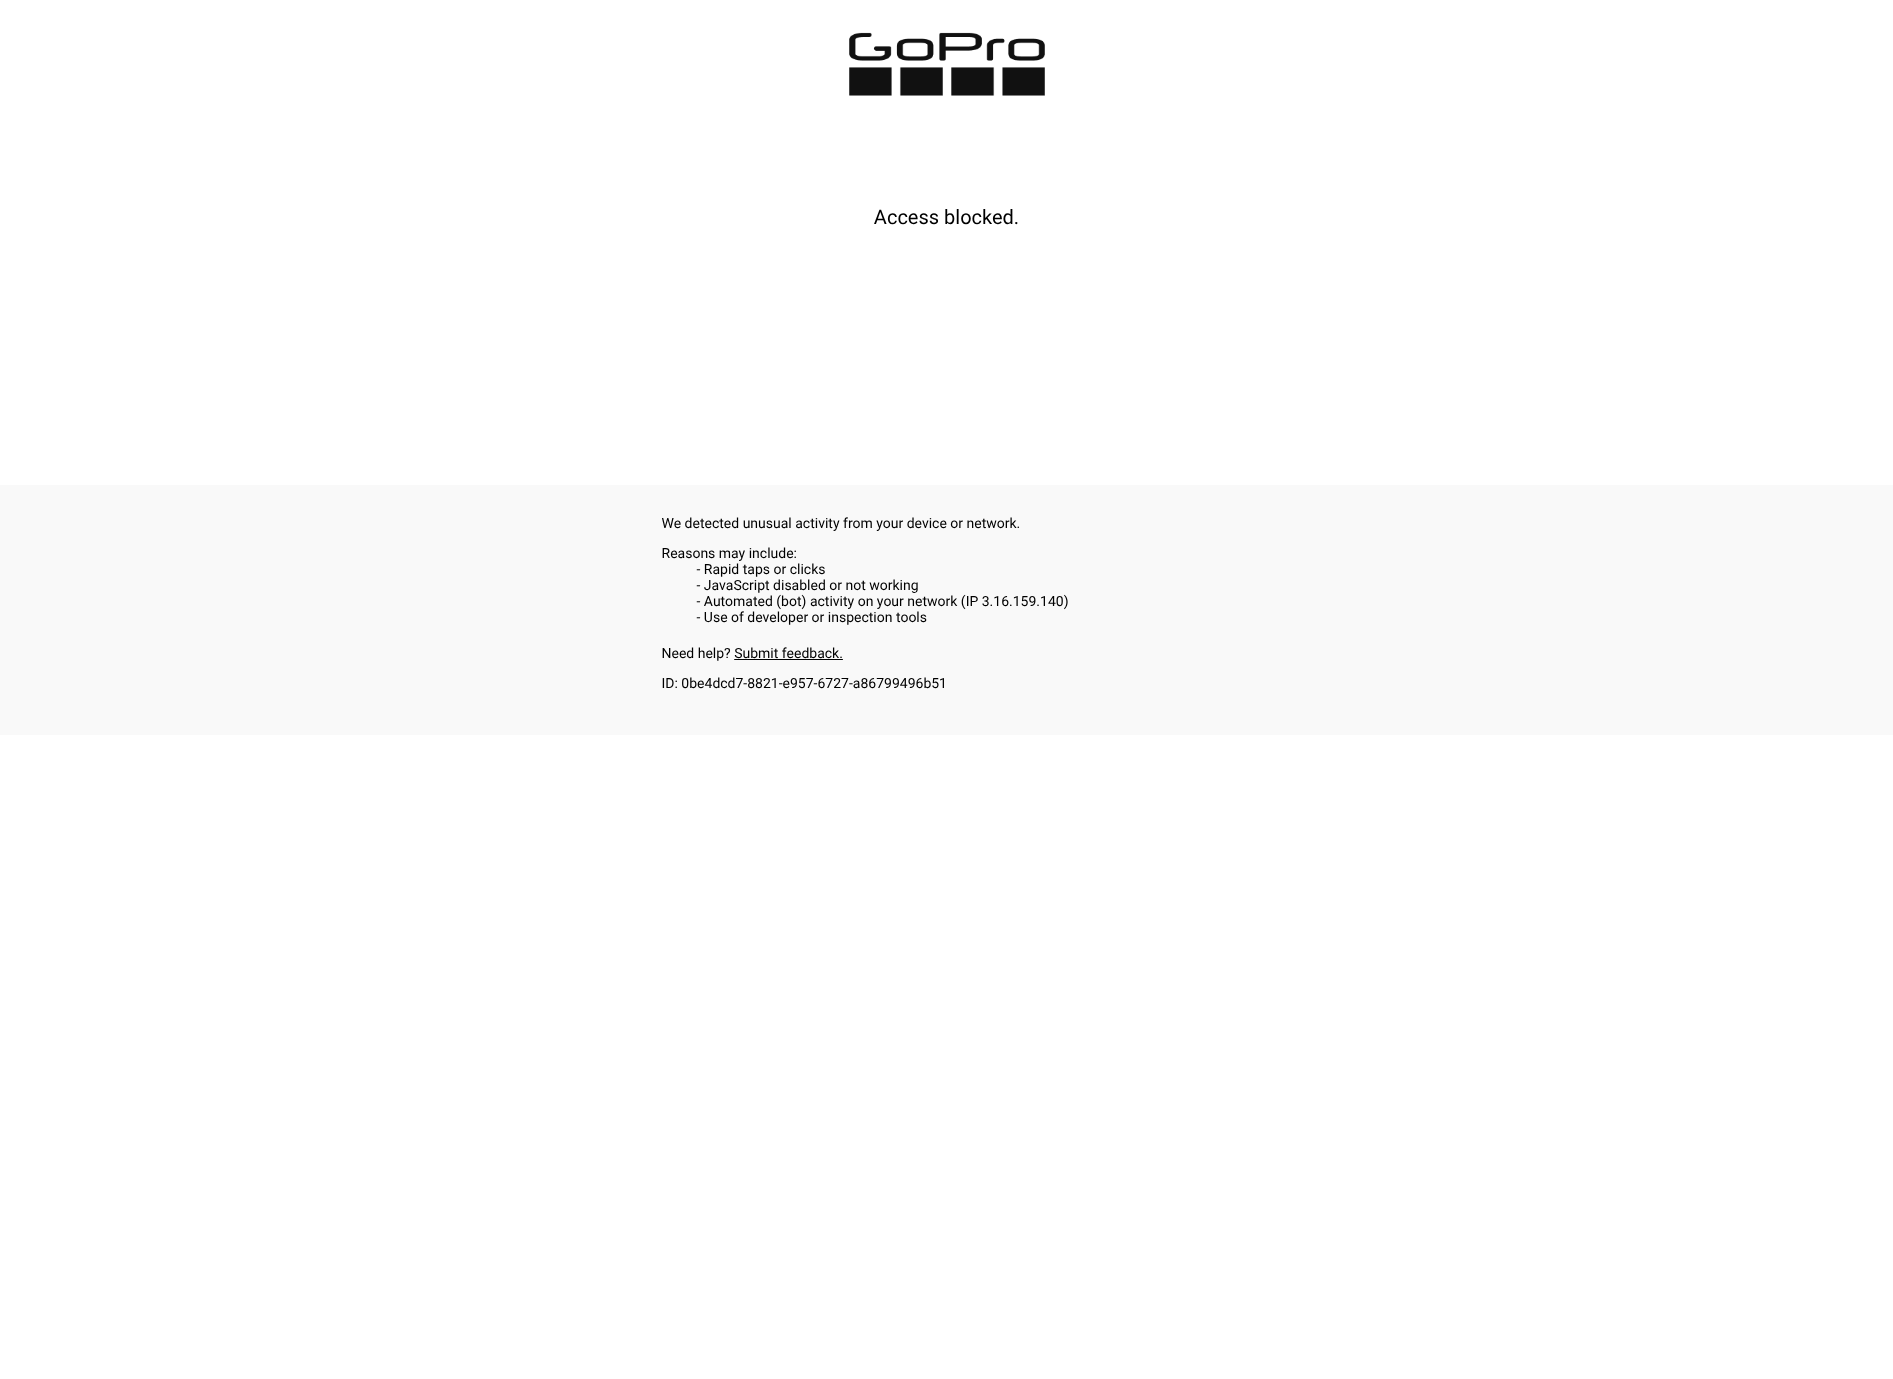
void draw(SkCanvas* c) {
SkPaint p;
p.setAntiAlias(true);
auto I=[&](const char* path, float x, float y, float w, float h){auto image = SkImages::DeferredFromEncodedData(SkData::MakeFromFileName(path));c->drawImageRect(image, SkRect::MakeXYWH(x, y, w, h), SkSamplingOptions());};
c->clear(0xffffffff);
I("1.png",0,32,1893,703);
}
